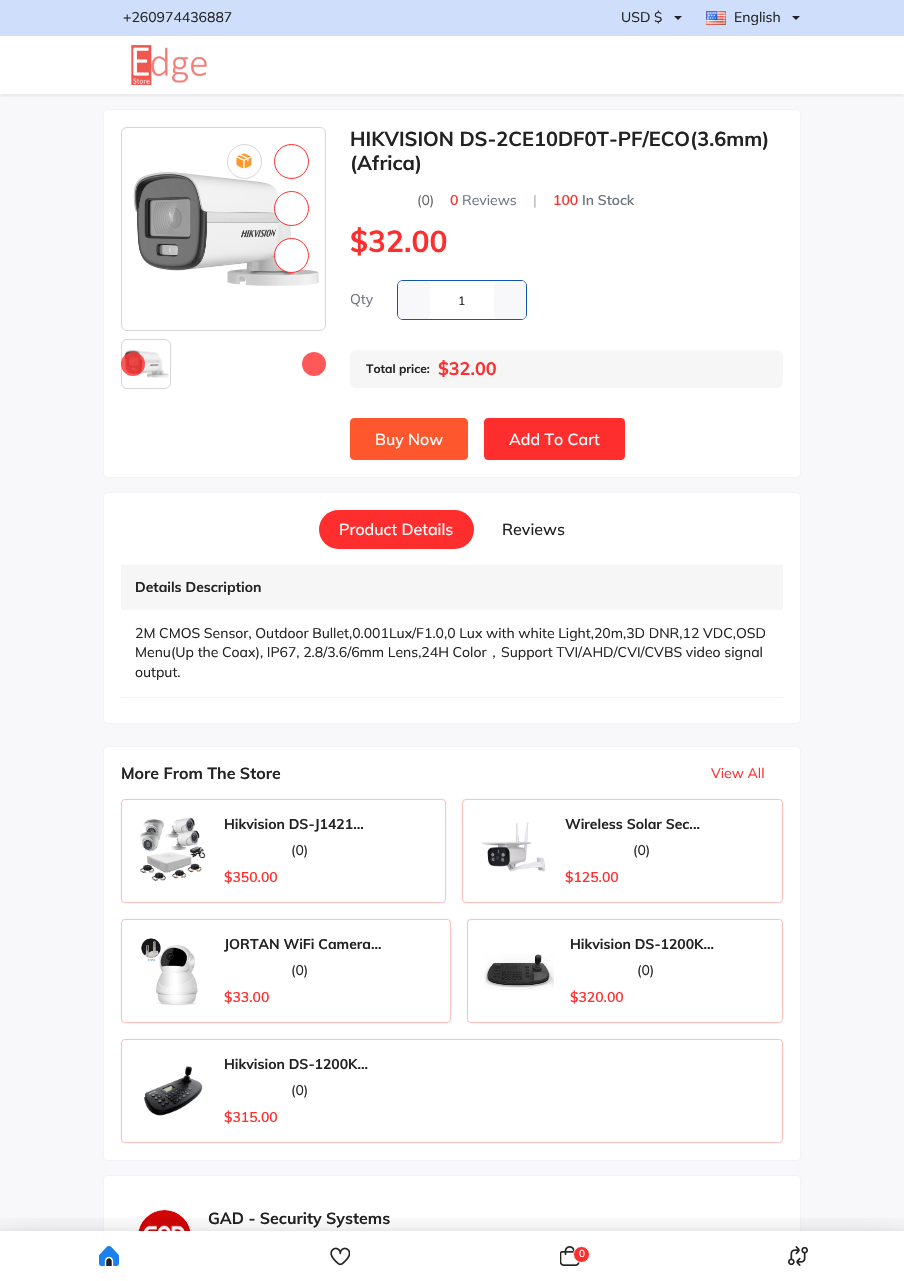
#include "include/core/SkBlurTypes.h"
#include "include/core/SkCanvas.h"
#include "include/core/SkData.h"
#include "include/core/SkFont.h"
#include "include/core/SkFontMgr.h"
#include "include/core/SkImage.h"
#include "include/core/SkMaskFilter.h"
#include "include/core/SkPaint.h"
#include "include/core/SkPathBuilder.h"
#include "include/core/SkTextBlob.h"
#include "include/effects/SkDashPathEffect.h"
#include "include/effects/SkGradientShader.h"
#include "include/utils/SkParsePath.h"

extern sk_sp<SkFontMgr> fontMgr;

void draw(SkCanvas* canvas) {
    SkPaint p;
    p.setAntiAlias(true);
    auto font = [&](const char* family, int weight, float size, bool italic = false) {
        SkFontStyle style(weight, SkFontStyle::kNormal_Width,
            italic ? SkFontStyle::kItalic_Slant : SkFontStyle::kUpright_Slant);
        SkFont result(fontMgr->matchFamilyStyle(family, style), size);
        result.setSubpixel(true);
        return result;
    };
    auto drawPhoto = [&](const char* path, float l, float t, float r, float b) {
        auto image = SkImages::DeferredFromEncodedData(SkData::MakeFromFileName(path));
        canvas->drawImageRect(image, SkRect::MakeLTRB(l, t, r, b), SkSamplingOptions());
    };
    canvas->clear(0xFFF8F8FA);
    p.setColor(0xFFFFFFFF);
    canvas->drawRect(SkRect::MakeLTRB(0, 36, 904, 94), p);
    p.setColor(0xFFCFDFFB);
    canvas->drawRect(SkRect::MakeLTRB(0, 0, 904, 36), p);
    auto font1 = font("Mulish", 400, 14);
    p.setColor(0xFF222222);
    canvas->drawString("+260974436887", 123, 22, font1, p);
    canvas->drawString("USD $", 621, 22, font1, p);
    canvas->drawPath(SkPathBuilder().moveTo(674, 16).lineTo(682, 16).lineTo(678, 20).close().detach(), p);
    drawPhoto("media/1.png", 706, 11, 726, 25);
    canvas->drawString("English", 734, 22, font1, p);
    canvas->drawPath(SkPathBuilder().moveTo(792, 16).lineTo(800, 16).lineTo(796, 20).close().detach(), p);
    canvas->save();
    canvas->clipRect(SkRect::MakeLTRB(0, 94, 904, 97));
    p.setColor(0x12000000);
    p.setMaskFilter(SkMaskFilter::MakeBlur(kNormal_SkBlurStyle, 2));
    canvas->drawRect(SkRect::MakeLTRB(0, 38, 904, 96), p);
    p.setMaskFilter(nullptr);
    canvas->restore();
    drawPhoto("media/2.png", 131, 45, 207, 85);
    p.setColor(0x33919EAB);
    p.setMaskFilter(SkMaskFilter::MakeBlur(kNormal_SkBlurStyle, 1));
    canvas->drawRoundRect(SkRect::MakeLTRB(104, 110, 800, 477), 4, 4, p);
    p.setMaskFilter(nullptr);
    p.setColor(0xFFFFFFFF);
    canvas->drawRoundRect(SkRect::MakeLTRB(104, 110, 800, 477), 4, 4, p);
    p.setStyle(SkPaint::kStroke_Style);
    p.setStrokeWidth(1);
    p.setColor(0xFFD6D6D6);
    canvas->drawRoundRect(SkRect::MakeLTRB(121.5f, 127.5f, 325.5f, 330.5f), 5.5f, 5.5f, p);
    drawPhoto("media/4.png", 133, 172, 319, 286);
    canvas->drawCircle(244.5f, 161.5f, 17, p);
    drawPhoto("media/3.png", 236, 153, 252, 169);
    p.setColor(0xFFFF2E2E);
    canvas->drawCircle(291.5f, 161.5f, 17, p);
    p.setStyle(SkPaint::kFill_Style);
    p.setColor(0xFFFFFFFF);
    canvas->drawCircle(291.5f, 208.5f, 17, p);
    p.setStyle(SkPaint::kStroke_Style);
    p.setColor(0xFFFF2E2E);
    canvas->drawCircle(291.5f, 208.5f, 17, p);
    p.setStyle(SkPaint::kFill_Style);
    p.setColor(0xFFFFFFFF);
    canvas->drawCircle(291.5f, 255.5f, 17, p);
    p.setStyle(SkPaint::kStroke_Style);
    p.setColor(0xFFFF2E2E);
    canvas->drawCircle(291.5f, 255.5f, 17, p);
    p.setColor(0xFFD6D6D6);
    canvas->drawRoundRect(SkRect::MakeLTRB(121.5f, 339.5f, 170.5f, 388.5f), 5.5f, 5.5f, p);
    drawPhoto("media/5.png", 124, 350, 169, 378);
    p.setStyle(SkPaint::kFill_Style);
    p.setColor(0xCCFF2E2E);
    canvas->drawCircle(133, 364, 12, p);
    p.setColor(0xFFFF5858);
    canvas->drawCircle(314, 364, 12, p);
    auto font2 = font("Mulish", 700, 20);
    p.setColor(0xFF222222);
    canvas->drawString("HIKVISION DS-2CE10DF0T-PF/ECO(3.6mm)", 350, 146, font2, p);
    canvas->drawString("(Africa)", 350, 170, font2, p);
    p.setColor(0xFF666666);
    canvas->drawString("(0)", 417, 205, font1, p);
    auto font3 = font("Mulish", 600, 14);
    p.setColor(0xFFFF2E2E);
    canvas->drawString("0", 450, 205, font3, p);
    p.setColor(0xFF6C757D);
    canvas->drawString("Reviews", 462, 205, font1, p);
    p.setColor(0xFFB3B3B3);
    canvas->drawString("|", 533, 205, font1, p);
    p.setColor(0xFFFF2E2E);
    canvas->drawString("100", 553, 205, font3, p);
    p.setColor(0xFF6C757D);
    canvas->drawString("In Stock", 582, 205, font3, p);
    auto font4 = font("Mulish", 700, 30);
    p.setColor(0xFFFF2E2E);
    canvas->drawString("$32.00", 350, 252, font4, p);
    p.setColor(0xFF6C757D);
    canvas->drawString("Qty", 350, 304, font1, p);
    p.setStyle(SkPaint::kStroke_Style);
    p.setColor(0xFF1455AC);
    canvas->drawRoundRect(SkRect::MakeLTRB(397.5f, 280.5f, 526.5f, 319.5f), 5.5f, 5.5f, p);
    p.setStyle(SkPaint::kFill_Style);
    p.setColor(0xFFF8F8FA);
    canvas->drawPath(SkPathBuilder().moveTo(403, 281).lineTo(426, 281).cubicTo(428, 281, 430, 283, 430, 285).lineTo(430, 315).cubicTo(430, 317, 428, 319, 426, 319).lineTo(403, 319).cubicTo(400, 319, 398, 317, 398, 314).lineTo(398, 286).cubicTo(398, 283, 400, 281, 403, 281).close().detach(), p);
    auto font5 = font("Mulish", 400, 12);
    p.setColor(0xFF222222);
    canvas->drawString("1", 458, 305, font5, p);
    p.setColor(0xFFF8F8FA);
    canvas->drawPath(SkPathBuilder().moveTo(498, 281).lineTo(521, 281).cubicTo(524, 281, 526, 283, 526, 286).lineTo(526, 314).cubicTo(526, 317, 524, 319, 521, 319).lineTo(498, 319).cubicTo(496, 319, 494, 317, 494, 315).lineTo(494, 285).cubicTo(494, 283, 496, 281, 498, 281).close().detach(), p);
    p.setColor(0xFFF6F6F6);
    canvas->drawRoundRect(SkRect::MakeLTRB(350, 350, 783, 388), 6, 6, p);
    auto font6 = font("Mulish", 700, 12);
    p.setColor(0xFF222222);
    canvas->drawString("Total price:", 366, 373, font6, p);
    auto font7 = font("Mulish", 700, 18);
    p.setColor(0xFFFF2E2E);
    canvas->drawString("$32.00", 438, 375, font7, p);
    p.setColor(0xFFFE562D);
    canvas->drawRoundRect(SkRect::MakeLTRB(350.5f, 418.5f, 467.5f, 459.5f), 3.5f, 3.5f, p);
    p.setStyle(SkPaint::kStroke_Style);
    canvas->drawRoundRect(SkRect::MakeLTRB(350.5f, 418.5f, 467.5f, 459.5f), 3.5f, 3.5f, p);
    auto font8 = font("Mulish", 500, 16);
    p.setStyle(SkPaint::kFill_Style);
    p.setColor(0xFFFFFFFF);
    canvas->drawString("Buy Now", 375, 445, font8, p);
    p.setColor(0xFFFF2E2E);
    canvas->drawRoundRect(SkRect::MakeLTRB(484.5f, 418.5f, 624.5f, 459.5f), 3.5f, 3.5f, p);
    p.setStyle(SkPaint::kStroke_Style);
    canvas->drawRoundRect(SkRect::MakeLTRB(484.5f, 418.5f, 624.5f, 459.5f), 3.5f, 3.5f, p);
    p.setStyle(SkPaint::kFill_Style);
    p.setColor(0xFFFFFFFF);
    canvas->drawString("Add To Cart", 509, 445, font8, p);
    p.setColor(0x33919EAB);
    p.setMaskFilter(SkMaskFilter::MakeBlur(kNormal_SkBlurStyle, 1));
    canvas->drawRoundRect(SkRect::MakeLTRB(104, 493, 800, 723), 4, 4, p);
    p.setMaskFilter(nullptr);
    p.setColor(0xFFFFFFFF);
    canvas->drawRoundRect(SkRect::MakeLTRB(104, 493, 800, 723), 4, 4, p);
    p.setColor(0xFFFF2E2E);
    canvas->drawRoundRect(SkRect::MakeLTRB(319, 510, 474, 549), 19.5f, 19.5f, p);
    p.setColor(0xFFFFFFFF);
    canvas->drawString("Product Details", 339, 535, font8, p);
    p.setColor(0xFF222222);
    canvas->drawString("Reviews", 502, 535, font8, p);
    p.setColor(0xFFF6F6F6);
    canvas->drawRect(SkRect::MakeLTRB(121, 565, 783, 610), p);
    auto font9 = font("Mulish", 700, 14);
    p.setColor(0xFF222222);
    canvas->drawString("Details Description", 135, 592, font9, p);
    p.setColor(0xFFF4F4F4);
    canvas->drawRect(SkRect::MakeLTRB(121, 697, 783, 698), p);
    p.setColor(0xFF222222);
    canvas->drawString("2M CMOS Sensor, Outdoor Bullet,0.001Lux/F1.0,0 Lux with white Light,20m,3D DNR,12 VDC,OSD", 135, 638, font1, p);
    canvas->drawString("Menu(Up the Coax), IP67, 2.8/3.6/6mm Lens,24H Color", 135, 657, font1, p);
    auto font10 = font("WenQuanYi Zen Hei", 500, 14);
    canvas->drawString("，", 487, 657, font10, p);
    canvas->drawString("Support TVI/AHD/CVI/CVBS video signal", 501, 657, font1, p);
    canvas->drawString("output.", 135, 677, font1, p);
    p.setColor(0x33919EAB);
    p.setMaskFilter(SkMaskFilter::MakeBlur(kNormal_SkBlurStyle, 1));
    canvas->drawRoundRect(SkRect::MakeLTRB(104, 747, 800, 1160), 4, 4, p);
    p.setMaskFilter(nullptr);
    p.setColor(0xFFFFFFFF);
    canvas->drawRoundRect(SkRect::MakeLTRB(104, 747, 800, 1160), 4, 4, p);
    auto font11 = font("Mulish", 700, 16);
    p.setColor(0xFF222222);
    canvas->drawString("More From The Store", 121, 779, font11, p);
    p.setColor(0xFFFF2E2E);
    canvas->drawString("View All", 711, 778, font1, p);
    p.setColor(0x33919EAB);
    p.setMaskFilter(SkMaskFilter::MakeBlur(kNormal_SkBlurStyle, 1));
    canvas->drawRoundRect(SkRect::MakeLTRB(121, 799, 446, 903), 4, 4, p);
    p.setMaskFilter(nullptr);
    p.setColor(0xFFFFFFFF);
    canvas->drawRoundRect(SkRect::MakeLTRB(121.5f, 799.5f, 445.5f, 902.5f), 3.5f, 3.5f, p);
    p.setStyle(SkPaint::kStroke_Style);
    p.setColor(0xFFFFC0C0);
    canvas->drawRoundRect(SkRect::MakeLTRB(121.5f, 799.5f, 445.5f, 902.5f), 3.5f, 3.5f, p);
    drawPhoto("media/6.png", 140, 817, 206, 881);
    p.setStyle(SkPaint::kFill_Style);
    p.setColor(0xFF222222);
    canvas->drawString("Hikvision DS-J1421...", 224, 829, font9, p);
    canvas->drawString("(0)", 291, 855, font1, p);
    p.setColor(0xFFFF2E2E);
    canvas->drawString("$350.00", 224, 882, font3, p);
    p.setColor(0x33919EAB);
    p.setMaskFilter(SkMaskFilter::MakeBlur(kNormal_SkBlurStyle, 1));
    canvas->drawRoundRect(SkRect::MakeLTRB(462, 799, 783, 903), 4, 4, p);
    p.setMaskFilter(nullptr);
    p.setColor(0xFFFFFFFF);
    canvas->drawRoundRect(SkRect::MakeLTRB(462.5f, 799.5f, 782.5f, 902.5f), 3.5f, 3.5f, p);
    p.setStyle(SkPaint::kStroke_Style);
    p.setColor(0xFFFFC0C0);
    canvas->drawRoundRect(SkRect::MakeLTRB(462.5f, 799.5f, 782.5f, 902.5f), 3.5f, 3.5f, p);
    drawPhoto("media/7.png", 482, 822, 546, 872);
    p.setStyle(SkPaint::kFill_Style);
    p.setColor(0xFF222222);
    canvas->drawString("Wireless Solar Sec...", 565, 829, font9, p);
    canvas->drawString("(0)", 633, 855, font1, p);
    p.setColor(0xFFFF2E2E);
    canvas->drawString("$125.00", 565, 882, font3, p);
    p.setColor(0x33919EAB);
    p.setMaskFilter(SkMaskFilter::MakeBlur(kNormal_SkBlurStyle, 1));
    canvas->drawRoundRect(SkRect::MakeLTRB(121, 919, 451, 1023), 4, 4, p);
    p.setMaskFilter(nullptr);
    p.setColor(0xFFFFFFFF);
    canvas->drawRoundRect(SkRect::MakeLTRB(121.5f, 919.5f, 450.5f, 1022.5f), 3.5f, 3.5f, p);
    p.setStyle(SkPaint::kStroke_Style);
    p.setColor(0xFFFFC0C0);
    canvas->drawRoundRect(SkRect::MakeLTRB(121.5f, 919.5f, 450.5f, 1022.5f), 3.5f, 3.5f, p);
    drawPhoto("media/8.png", 141, 938, 198, 1006);
    p.setStyle(SkPaint::kFill_Style);
    p.setColor(0xFF222222);
    canvas->drawString("JORTAN WiFi Camera...", 224, 949, font9, p);
    canvas->drawString("(0)", 291, 975, font1, p);
    p.setColor(0xFFFF2E2E);
    canvas->drawString("$33.00", 224, 1002, font3, p);
    p.setColor(0x33919EAB);
    p.setMaskFilter(SkMaskFilter::MakeBlur(kNormal_SkBlurStyle, 1));
    canvas->drawRoundRect(SkRect::MakeLTRB(467, 919, 783, 1023), 4, 4, p);
    p.setMaskFilter(nullptr);
    p.setColor(0xFFFFFFFF);
    canvas->drawRoundRect(SkRect::MakeLTRB(467.5f, 919.5f, 782.5f, 1022.5f), 3.5f, 3.5f, p);
    p.setStyle(SkPaint::kStroke_Style);
    p.setColor(0xFFFFC0C0);
    canvas->drawRoundRect(SkRect::MakeLTRB(467.5f, 919.5f, 782.5f, 1022.5f), 3.5f, 3.5f, p);
    drawPhoto("media/9.png", 484, 954, 554, 990);
    p.setStyle(SkPaint::kFill_Style);
    p.setColor(0xFF222222);
    canvas->drawString("Hikvision DS-1200K...", 570, 949, font9, p);
    canvas->drawString("(0)", 637, 975, font1, p);
    p.setColor(0xFFFF2E2E);
    canvas->drawString("$320.00", 570, 1002, font3, p);
    p.setColor(0x33919EAB);
    p.setMaskFilter(SkMaskFilter::MakeBlur(kNormal_SkBlurStyle, 1));
    canvas->drawRoundRect(SkRect::MakeLTRB(121, 1039, 783, 1143), 4, 4, p);
    p.setMaskFilter(nullptr);
    p.setColor(0xFFFFFFFF);
    canvas->drawRoundRect(SkRect::MakeLTRB(121.5f, 1039.5f, 782.5f, 1142.5f), 3.5f, 3.5f, p);
    p.setStyle(SkPaint::kStroke_Style);
    p.setColor(0xFFFFC0C0);
    canvas->drawRoundRect(SkRect::MakeLTRB(121.5f, 1039.5f, 782.5f, 1142.5f), 3.5f, 3.5f, p);
    drawPhoto("media/10.png", 143, 1066, 203, 1116);
    p.setStyle(SkPaint::kFill_Style);
    p.setColor(0xFF222222);
    canvas->drawString("Hikvision DS-1200K...", 224, 1069, font9, p);
    canvas->drawString("(0)", 291, 1095, font1, p);
    p.setColor(0xFFFF2E2E);
    canvas->drawString("$315.00", 224, 1122, font3, p);
    p.setColor(0x33919EAB);
    p.setMaskFilter(SkMaskFilter::MakeBlur(kNormal_SkBlurStyle, 1));
    canvas->drawRoundRect(SkRect::MakeLTRB(104, 1176, 800, 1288), 4, 4, p);
    p.setMaskFilter(nullptr);
    p.setColor(0xFFFFFFFF);
    canvas->drawRoundRect(SkRect::MakeLTRB(104, 1176, 800, 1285), 4, 4, p);
    p.setStyle(SkPaint::kStroke_Style);
    p.setColor(0xFFF4F4F4);
    canvas->drawCircle(164.5f, 1236.5f, 27, p);
    drawPhoto("media/11.png", 138, 1210, 191, 1231);
    p.setStyle(SkPaint::kFill_Style);
    p.setColor(0xFF222222);
    canvas->drawString("GAD - Security Systems", 208, 1224, font11, p);
    p.setColor(0x1A000000);
    p.setMaskFilter(SkMaskFilter::MakeBlur(kNormal_SkBlurStyle, 5));
    canvas->drawRect(SkRect::MakeLTRB(0, 1233, 904, 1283), p);
    p.setMaskFilter(nullptr);
    p.setColor(0xFFFFFFFF);
    canvas->drawRect(SkRect::MakeLTRB(0, 1231, 904, 1281), p);
    canvas->save();
    canvas->clipRect(SkRect::MakeLTRB(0, 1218, 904, 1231));
    p.setColor(0x2E000000);
    p.setMaskFilter(SkMaskFilter::MakeBlur(kNormal_SkBlurStyle, 24));
    canvas->drawRect(SkRect::MakeLTRB(0, 1247, 904, 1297), p);
    p.setMaskFilter(nullptr);
    canvas->restore();
    drawPhoto("media/12.png", 99, 1246, 119, 1266);
    drawPhoto("media/13.png", 330, 1247, 350, 1266);
    drawPhoto("media/14.png", 560, 1246, 580, 1266);
    p.setColor(0xFFFF2E2E);
    canvas->drawCircle(581.5f, 1254.5f, 8, p);
    p.setStyle(SkPaint::kStroke_Style);
    p.setColor(0xFFFFFFFF);
    canvas->drawCircle(581.5f, 1254.5f, 8, p);
    auto font12 = font("Mulish", 400, 10);
    p.setStyle(SkPaint::kFill_Style);
    canvas->drawString("0", 579, 1257, font12, p);
    drawPhoto("media/15.png", 788, 1246, 808, 1266);
}
